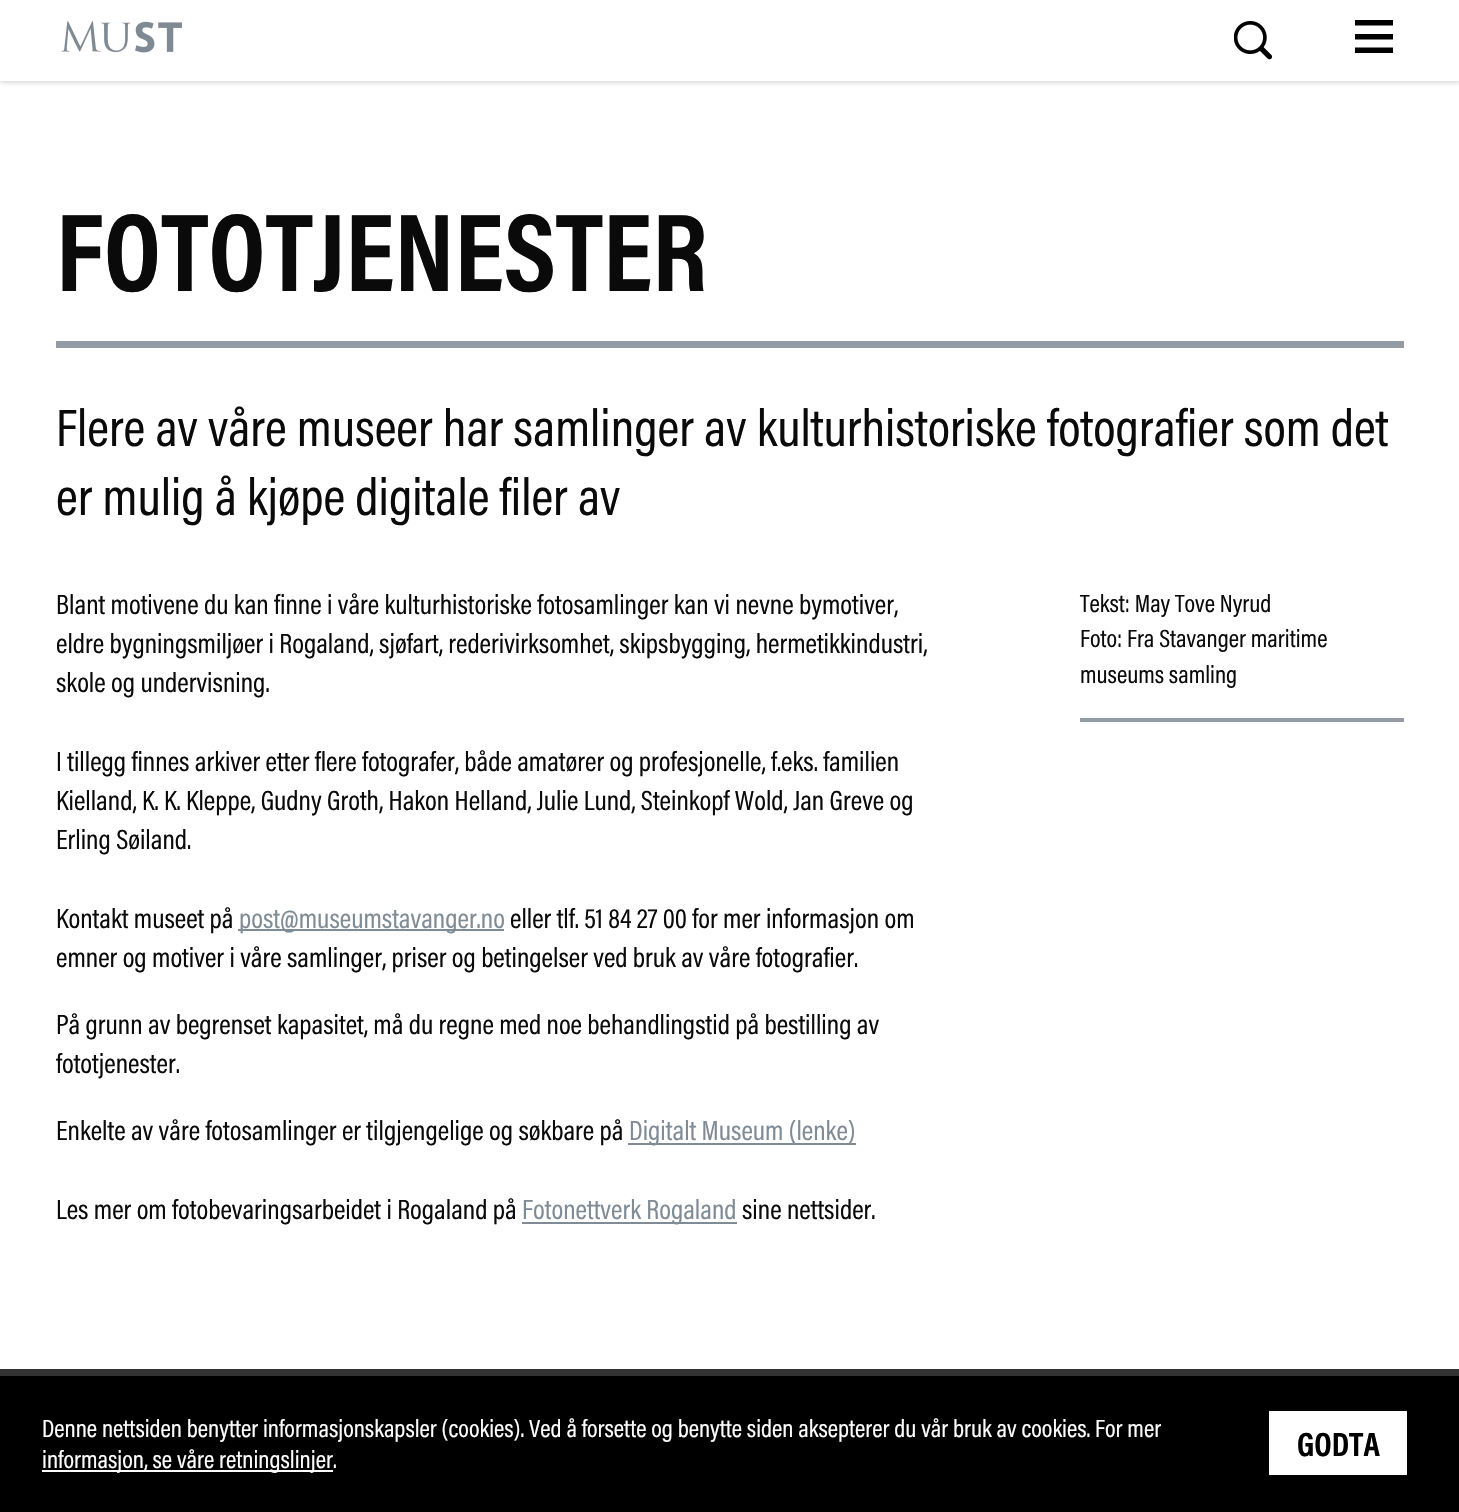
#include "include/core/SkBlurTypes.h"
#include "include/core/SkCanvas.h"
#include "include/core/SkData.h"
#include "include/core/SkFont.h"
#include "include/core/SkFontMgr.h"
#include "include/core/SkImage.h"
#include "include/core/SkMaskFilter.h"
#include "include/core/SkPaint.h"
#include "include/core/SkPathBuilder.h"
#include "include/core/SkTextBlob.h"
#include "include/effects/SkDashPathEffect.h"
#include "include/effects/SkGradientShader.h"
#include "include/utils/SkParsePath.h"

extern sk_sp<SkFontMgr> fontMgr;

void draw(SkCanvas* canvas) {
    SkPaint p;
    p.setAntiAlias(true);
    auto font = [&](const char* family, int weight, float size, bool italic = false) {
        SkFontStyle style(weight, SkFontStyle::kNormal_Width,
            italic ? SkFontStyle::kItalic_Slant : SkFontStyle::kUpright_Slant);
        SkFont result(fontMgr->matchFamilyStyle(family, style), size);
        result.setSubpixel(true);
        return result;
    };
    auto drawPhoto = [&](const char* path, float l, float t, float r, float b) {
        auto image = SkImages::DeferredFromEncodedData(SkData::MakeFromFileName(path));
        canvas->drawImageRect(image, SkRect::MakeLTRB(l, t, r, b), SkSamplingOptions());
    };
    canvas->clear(0xFFFFFFFF);
    p.setColor(0x33000000);
    p.setMaskFilter(SkMaskFilter::MakeBlur(kNormal_SkBlurStyle, 2.5f));
    canvas->drawRect(SkRect::MakeLTRB(0, 2, 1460, 82), p);
    p.setMaskFilter(nullptr);
    p.setColor(0xFFFFFFFF);
    canvas->drawRect(SkRect::MakeLTRB(0, 0, 1459, 81), p);
    drawPhoto("media/1.png", 61, 21, 182, 53);
    drawPhoto("media/2.png", 1234, 21, 1273, 60);
    canvas->save();
    canvas->clipRect(SkRect::MakeLTRB(1355, 18, 1393, 56));
    p.setColor(0xFF000000);
    canvas->drawPath(SkPathBuilder(SkPathFillType::kEvenOdd).moveTo(1355, 25.5f).lineTo(1393.5f, 25.5f).lineTo(1393.5f, 20).lineTo(1355, 20).close().moveTo(1355, 39.5f).lineTo(1393.5f, 39.5f).lineTo(1393.5f, 34).lineTo(1355, 34).close().moveTo(1355, 53).lineTo(1393.5f, 53).lineTo(1393.5f, 47.5f).lineTo(1355, 47.5f).close().detach(), p);
    canvas->restore();
    auto font1 = font("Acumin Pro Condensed", 700, 112);
    p.setColor(0xFF0A0A0A);
    canvas->drawString("FOTOTJENESTER", 56, 291, font1, p);
    p.setColor(0xFF939CA5);
    canvas->drawRect(SkRect::MakeLTRB(56, 341, 1404, 348), p);
    auto font2 = font("Acumin Pro Condensed", 400, 53.2f);
    p.setColor(0xFF0A0A0A);
    canvas->drawString("Flere av våre museer har samlinger av kulturhistoriske fotografier som det", 56, 446, font2, p);
    canvas->drawString("er mulig å kjøpe digitale filer av", 56, 515, font2, p);
    auto font3 = font("Acumin Pro Condensed", 400, 28);
    {
        const struct { const char* s; float x, y; } items[] = {
            {"Blant motivene du kan finne i våre kulturhistoriske fotosamlinger kan vi nevne bymotiver,", 56, 614},
            {"eldre bygningsmiljøer i Rogaland, sjøfart, rederivirksomhet, skipsbygging, hermetikkindustri,", 56, 653},
            {"skole og undervisning.", 56, 692},
            {"I tillegg finnes arkiver etter flere fotografer, både amatører og profesjonelle, f.eks. familien", 56, 771},
            {"Kielland, K. K. Kleppe, Gudny Groth, Hakon Helland, Julie Lund, Steinkopf Wold, Jan Greve og", 56, 810},
            {"Erling Søiland.", 56, 849},
            {"Kontakt museet på", 56, 928},
        };
        for (auto [s, x, y] : items) {
            canvas->drawString(s, x, y, font3, p);
        }
    }
    p.setColor(0xFF7F8B95);
    canvas->drawRect(SkRect::MakeLTRB(238, 929, 504, 931), p);
    canvas->drawString("post@museumstavanger.no", 239, 928, font3, p);
    p.setColor(0xFF0A0A0A);
    {
        const struct { const char* s; float x, y; } items[] = {
            {"eller tlf. 51 84 27 00 for mer informasjon om", 510, 928},
            {"emner og motiver i våre samlinger, priser og betingelser ved bruk av våre fotografier.", 56, 967},
            {"På grunn av begrenset kapasitet, må du regne med noe behandlingstid på bestilling av", 56, 1034},
            {"fototjenester.", 56, 1073},
            {"Enkelte av våre fotosamlinger er tilgjengelige og søkbare på", 56, 1140},
        };
        for (auto [s, x, y] : items) {
            canvas->drawString(s, x, y, font3, p);
        }
    }
    p.setColor(0xFF7F8B95);
    canvas->drawRect(SkRect::MakeLTRB(628, 1143, 856, 1145), p);
    canvas->drawString("Digitalt Museum (lenke)", 629, 1140, font3, p);
    p.setColor(0xFF0A0A0A);
    canvas->drawString("Les mer om fotobevaringsarbeidet i Rogaland på", 56, 1219, font3, p);
    p.setColor(0xFF7F8B95);
    canvas->drawRect(SkRect::MakeLTRB(522, 1222, 737, 1224), p);
    canvas->drawString("Fotonettverk Rogaland", 522, 1219, font3, p);
    p.setColor(0xFF0A0A0A);
    canvas->drawString("sine nettsider.", 742, 1219, font3, p);
    auto font4 = font("Acumin Pro Condensed", 400, 25.2f);
    {
        const struct { const char* s; float x, y; } items[] = {
            {"Tekst: May Tove Nyrud", 1080, 612},
            {"Foto: Fra Stavanger maritime", 1080, 647},
            {"museums samling", 1080, 683},
        };
        for (auto [s, x, y] : items) {
            canvas->drawString(s, x, y, font4, p);
        }
    }
    {
        const struct { float l, t, r, b; SkColor color; } items[] = {
            {1080, 718, 1404, 722, 0xFF939CA5},
            {0, 1376, 1459, 1512, 0xFF000000},
            {0, 1369, 1459, 1376, 0xFF333333},
        };
        for (auto [l, t, r, b, color] : items) {
            p.setColor(color);
            canvas->drawRect(SkRect::MakeLTRB(l, t, r, b), p);
        }
    }
    p.setColor(0xFFFFFFFF);
    canvas->drawString("Denne nettsiden benytter informasjonskapsler (cookies). Ved å forsette og benytte siden aksepterer du vår bruk av cookies. For mer", 42, 1437, font4, p);
    canvas->drawRect(SkRect::MakeLTRB(42, 1470, 333, 1472), p);
    canvas->drawString("informasjon, se våre retningslinjer.", 42, 1468, font4, p);
    canvas->drawRect(SkRect::MakeLTRB(1269, 1411, 1407, 1475), p);
    auto font5 = font("Acumin Pro Condensed", 700, 34);
    p.setColor(0xFF000000);
    canvas->drawString("GODTA", 1297, 1456, font5, p);
}
